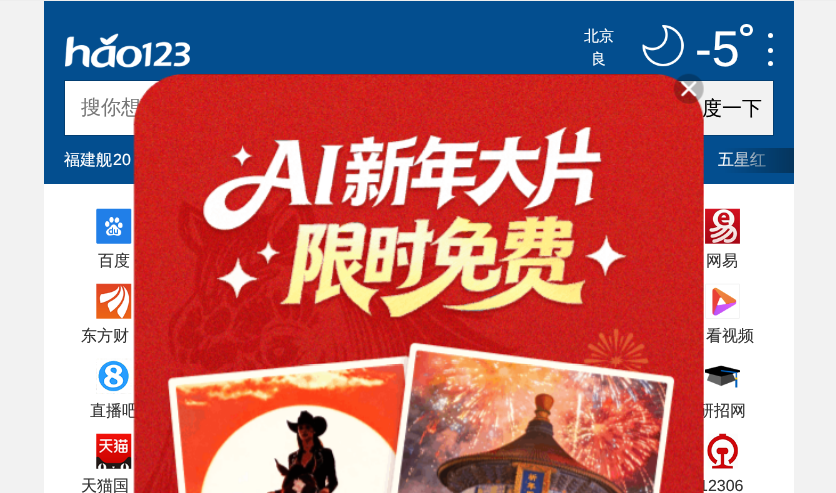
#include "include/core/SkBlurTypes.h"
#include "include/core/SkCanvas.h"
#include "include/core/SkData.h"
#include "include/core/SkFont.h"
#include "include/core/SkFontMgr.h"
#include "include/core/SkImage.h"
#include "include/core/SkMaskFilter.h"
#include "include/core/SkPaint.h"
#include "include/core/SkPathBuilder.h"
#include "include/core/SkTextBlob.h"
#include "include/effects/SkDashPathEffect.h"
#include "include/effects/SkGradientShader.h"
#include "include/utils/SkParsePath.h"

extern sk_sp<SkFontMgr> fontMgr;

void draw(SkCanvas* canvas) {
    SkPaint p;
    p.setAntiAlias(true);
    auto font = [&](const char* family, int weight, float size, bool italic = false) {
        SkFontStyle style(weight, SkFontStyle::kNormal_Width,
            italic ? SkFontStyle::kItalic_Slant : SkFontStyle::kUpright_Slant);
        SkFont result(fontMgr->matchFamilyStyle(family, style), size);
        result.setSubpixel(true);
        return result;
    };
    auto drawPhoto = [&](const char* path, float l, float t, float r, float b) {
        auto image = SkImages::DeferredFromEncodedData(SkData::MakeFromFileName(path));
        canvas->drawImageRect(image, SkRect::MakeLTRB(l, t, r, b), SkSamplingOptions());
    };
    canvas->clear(0xFFF2F2F2);
    p.setColor(0xFFEEEEEE);
    canvas->drawRect(SkRect::MakeLTRB(0, 0, 836, 1), p);
    p.setColor(0xFF034E8F);
    canvas->drawRect(SkRect::MakeLTRB(44, 1, 794, 184), p);
    drawPhoto("media/1.png", 65, 33, 190, 68);
    auto font1 = font("WenQuanYi Zen Hei", 500, 15);
    p.setColor(0xFFFFFFFF);
    canvas->drawString("北京", 584, 41, font1, p);
    canvas->drawString("良", 591, 64, font1, p);
    drawPhoto("media/2.png", 642, 25, 684, 67);
    auto font2 = font("Liberation Sans", 400, 50);
    canvas->drawString("-5", 695, 66, font2, p);
    p.setStyle(SkPaint::kStroke_Style);
    p.setStrokeWidth(3);
    canvas->drawRoundRect(SkRect::MakeLTRB(741.5f, 25.5f, 751.5f, 34.5f), 4.5f, 4.5f, p);
    p.setStyle(SkPaint::kFill_Style);
    canvas->drawCircle(770.5f, 35.5f, 2.5f, p);
    canvas->drawCircle(770.5f, 50.5f, 2.5f, p);
    canvas->drawCircle(770.5f, 63.5f, 2.5f, p);
    p.setStyle(SkPaint::kStroke_Style);
    p.setStrokeWidth(1);
    p.setColor(0xFF023E72);
    canvas->drawRect(SkRect::MakeLTRB(64.5f, 80.5f, 773.5f, 135.5f), p);
    p.setStyle(SkPaint::kFill_Style);
    p.setColor(0xFFFFFFFF);
    canvas->drawRect(SkRect::MakeLTRB(65, 81, 632, 135), p);
    auto font3 = font("WenQuanYi Zen Hei", 500, 20);
    p.setColor(0xFF777777);
    canvas->drawString("搜你想", 81, 114, font3, p);
    p.setColor(0xFFF2F2F2);
    canvas->drawRect(SkRect::MakeLTRB(676, 81, 773, 135), p);
    p.setColor(0xFF000000);
    canvas->drawString("度一下", 702, 115, font3, p);
    auto font4 = font("WenQuanYi Zen Hei", 500, 16);
    p.setColor(0xFFFFFFFF);
    canvas->drawString("五星红", 718, 165, font4, p);
    {
        const SkColor colors[] = {0x0004345C, 0xFF04345C};
        const float stops[] = {0, 1};
        const SkPoint ends[] = {{723, 160}, {794, 160}};
        p.setShader(SkGradientShader::MakeLinear(ends, colors, stops, 2, SkTileMode::kClamp));
        p.setAlpha(255);
    }
    canvas->drawRect(SkRect::MakeLTRB(725, 148, 794, 173), p);
    p.setShader(nullptr);
    p.setColor(0xFFFFFFFF);
    canvas->drawString("福建舰", 64, 165, font4, p);
    auto font5 = font("Liberation Sans", 400, 16);
    canvas->drawString("20", 113, 165, font5, p);
    canvas->drawRect(SkRect::MakeLTRB(44, 184, 794, 493), p);
    drawPhoto("media/5.png", 217, 208, 253, 232);
    drawPhoto("media/6.png", 340, 208, 375, 244);
    drawPhoto("media/7.png", 461, 216, 497, 244);
    drawPhoto("media/8.png", 602, 234, 611, 244);
    drawPhoto("media/11.png", 235, 284, 248, 300);
    drawPhoto("media/12.png", 340, 290, 375, 317);
    drawPhoto("media/13.png", 461, 283, 497, 314);
    drawPhoto("media/14.png", 582, 283, 588, 306);
    drawPhoto("media/17.png", 223, 371, 247, 387);
    drawPhoto("media/18.png", 340, 359, 375, 387);
    drawPhoto("media/19.png", 461, 358, 497, 394);
    drawPhoto("media/20.png", 582, 366, 618, 394);
    p.setColor(0xFF333333);
    canvas->drawString("直播吧", 90, 416, font4, p);
    canvas->drawString("研招网", 698, 416, font4, p);
    drawPhoto("media/23.png", 217, 433, 236, 453);
    drawPhoto("media/24.png", 473, 433, 497, 458);
    drawPhoto("media/25.png", 588, 438, 613, 468);
    canvas->drawString("12306", 699, 491, font5, p);
    drawPhoto("media/4.png", 133, 74, 704, 493);
    drawPhoto("media/3.png", 673, 73, 704, 104);
    drawPhoto("media/9.png", 96, 208, 132, 244);
    canvas->drawString("百度", 98, 266, font4, p);
    drawPhoto("media/10.png", 705, 208, 740, 244);
    canvas->drawString("网易", 706, 266, font4, p);
    drawPhoto("media/15.png", 96, 283, 132, 319);
    canvas->drawString("东方财", 81, 341, font4, p);
    drawPhoto("media/16.png", 705, 283, 740, 319);
    canvas->drawString("看视频", 706, 341, font4, p);
    drawPhoto("media/21.png", 96, 358, 132, 394);
    drawPhoto("media/22.png", 705, 365, 740, 388);
    drawPhoto("media/26.png", 96, 433, 132, 469);
    canvas->drawString("天猫国", 81, 491, font4, p);
    drawPhoto("media/27.png", 707, 433, 738, 469);
}
